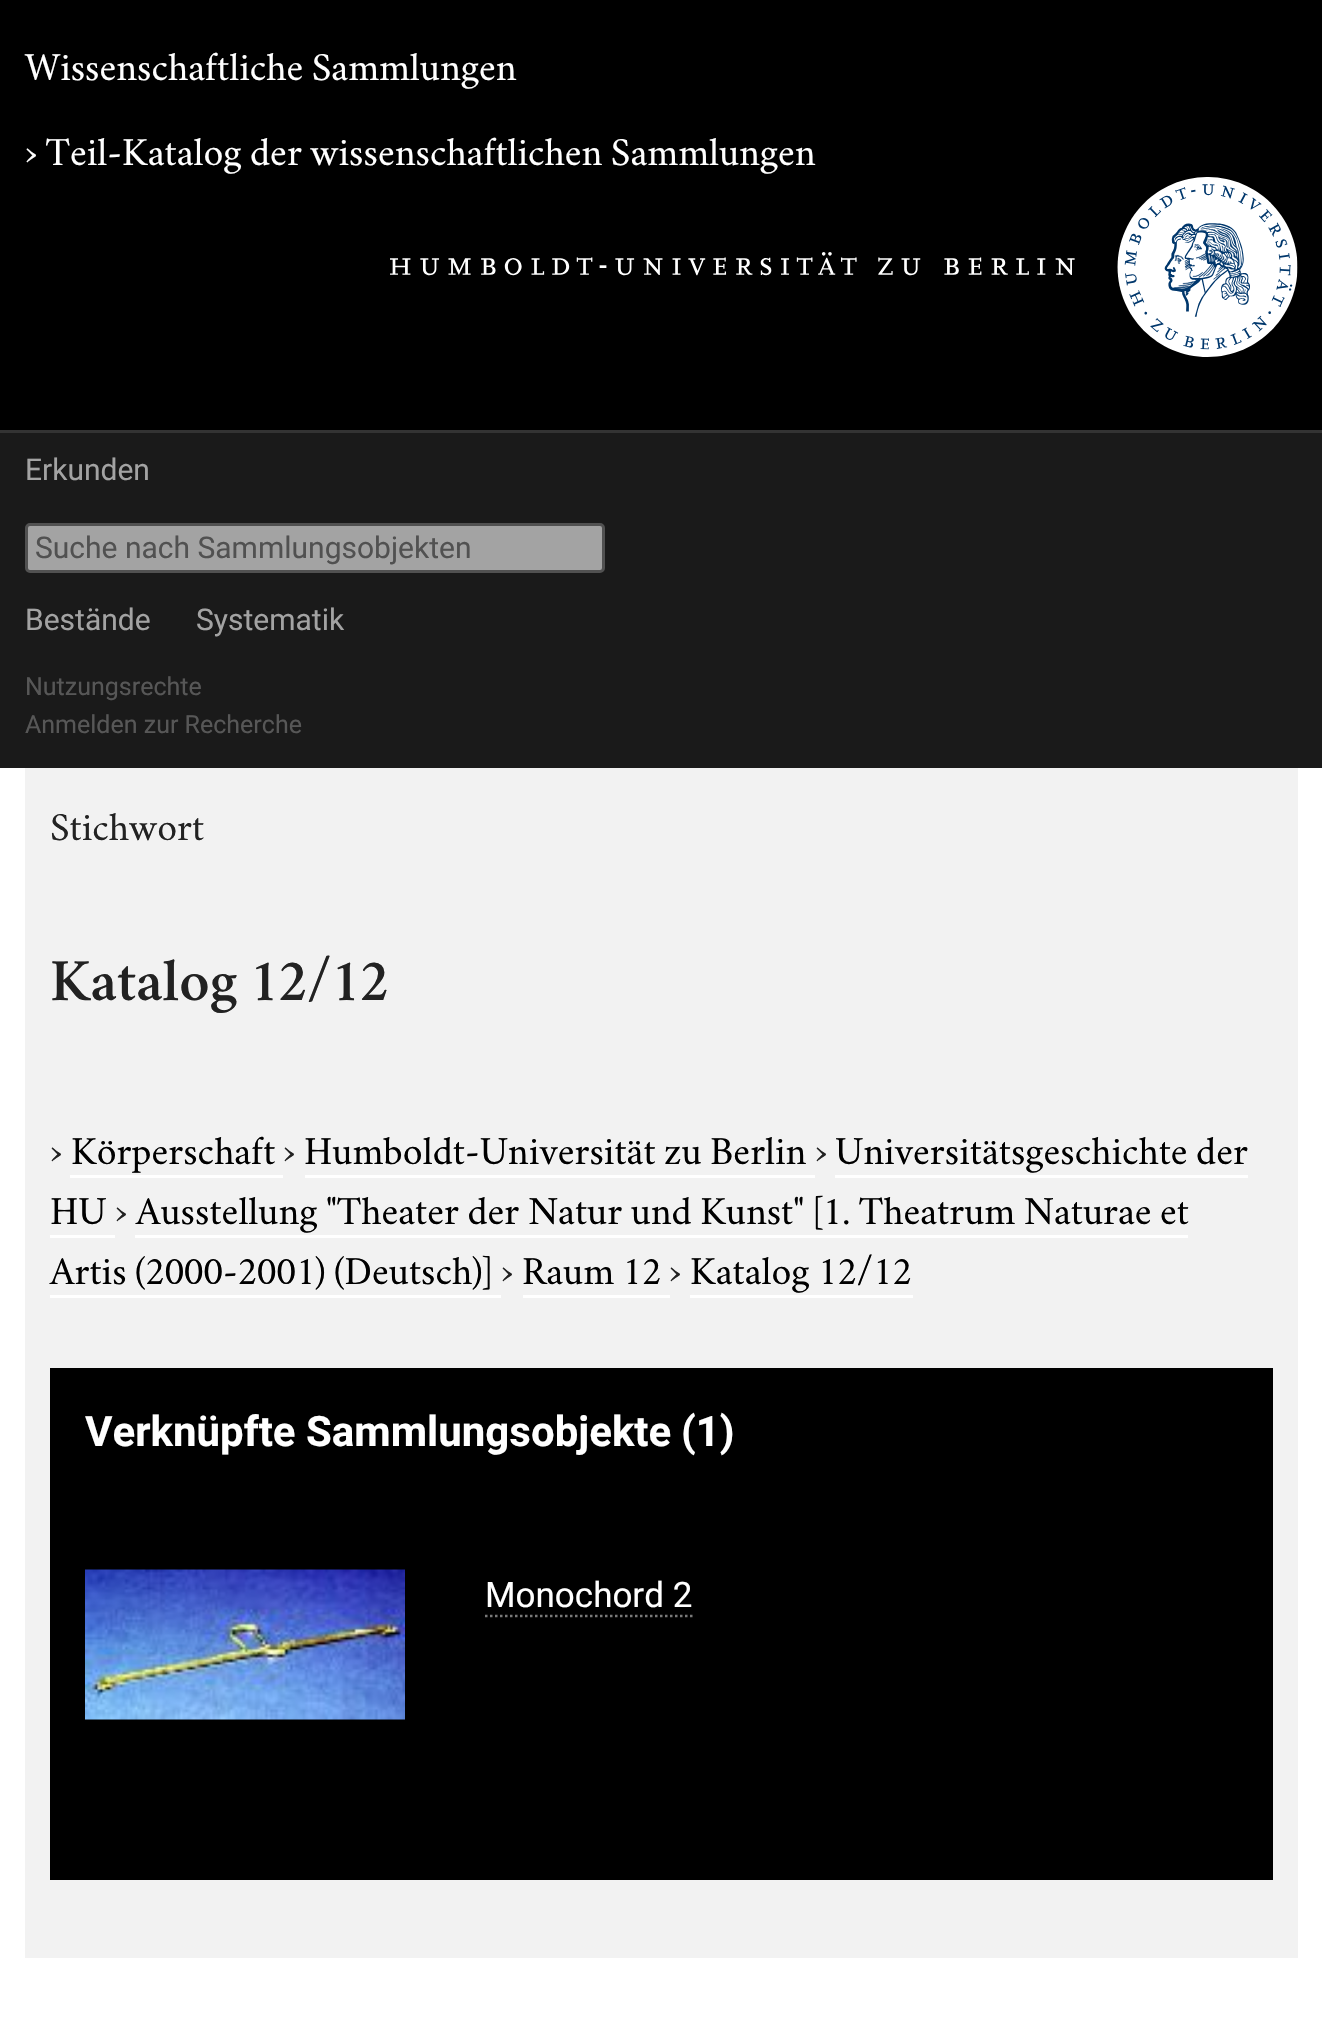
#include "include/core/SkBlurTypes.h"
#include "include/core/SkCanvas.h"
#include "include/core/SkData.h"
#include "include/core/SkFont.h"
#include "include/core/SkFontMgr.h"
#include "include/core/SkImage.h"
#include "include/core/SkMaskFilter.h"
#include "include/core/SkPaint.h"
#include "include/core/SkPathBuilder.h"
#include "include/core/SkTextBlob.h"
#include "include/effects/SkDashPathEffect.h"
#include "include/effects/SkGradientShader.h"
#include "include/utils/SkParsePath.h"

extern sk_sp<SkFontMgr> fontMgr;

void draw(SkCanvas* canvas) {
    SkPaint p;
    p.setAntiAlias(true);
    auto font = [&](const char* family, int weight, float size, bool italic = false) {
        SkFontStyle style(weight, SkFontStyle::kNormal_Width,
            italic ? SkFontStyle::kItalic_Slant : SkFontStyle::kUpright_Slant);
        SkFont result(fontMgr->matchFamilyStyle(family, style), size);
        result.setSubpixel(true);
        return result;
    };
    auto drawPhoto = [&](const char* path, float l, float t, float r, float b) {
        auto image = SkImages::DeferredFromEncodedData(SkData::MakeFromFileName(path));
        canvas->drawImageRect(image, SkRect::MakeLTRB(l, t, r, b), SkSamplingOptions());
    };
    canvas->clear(0xFFFFFFFF);
    p.setColor(0xFF000000);
    canvas->drawRect(SkRect::MakeLTRB(0, 0, 1322, 430), p);
    auto font1 = font("Crimson Text", 400, 40);
    p.setColor(0xFFFFFFFF);
    canvas->drawString("Wissenschaftliche Sammlungen", 25, 80, font1, p);
    canvas->drawString("› Teil-Katalog der wissenschaftlichen Sammlungen", 25, 165, font1, p);
    drawPhoto("media/1.png", 390, 177, 1298, 357);
    p.setColor(0xFF1A1A1A);
    canvas->drawRect(SkRect::MakeLTRB(0, 433, 1322, 768), p);
    p.setColor(0xFF333333);
    canvas->drawRect(SkRect::MakeLTRB(0, 430, 1322, 433), p);
    auto font2 = font("Roboto", 400, 30);
    p.setColor(0xFFA3A3A3);
    canvas->drawString("Erkunden", 25, 480, font2, p);
    canvas->drawRoundRect(SkRect::MakeLTRB(26.5f, 524.5f, 603.5f, 571.5f), 3.5f, 3.5f, p);
    p.setStyle(SkPaint::kStroke_Style);
    p.setStrokeWidth(3);
    p.setColor(0xFF515151);
    canvas->drawRoundRect(SkRect::MakeLTRB(26.5f, 524.5f, 603.5f, 571.5f), 3.5f, 3.5f, p);
    p.setStyle(SkPaint::kFill_Style);
    canvas->drawString("Suche nach Sammlungsobjekten", 35, 558, font2, p);
    p.setColor(0xFFA3A3A3);
    canvas->drawString("Bestände", 25, 630, font2, p);
    canvas->drawString("Systematik", 196, 630, font2, p);
    auto font3 = font("Roboto", 400, 25);
    p.setColor(0xFF575757);
    canvas->drawString("Nutzungsrechte", 25, 695, font3, p);
    canvas->drawString("Anmelden zur Recherche", 25, 733, font3, p);
    p.setColor(0xFFF2F2F2);
    canvas->drawRect(SkRect::MakeLTRB(25, 768, 1298, 1958), p);
    p.setColor(0xFF222222);
    canvas->drawString("Stichwort", 50, 840, font1, p);
    auto font4 = font("Crimson Text", 600, 60);
    canvas->drawString("Katalog 12/12", 50, 1000, font4, p);
    canvas->drawString("›", 50, 1164, font1, p);
    p.setColor(0xFF000000);
    canvas->drawString("Körperschaft", 71, 1164, font1, p);
    p.setColor(0xFFFFFFFF);
    canvas->drawRect(SkRect::MakeLTRB(70, 1175, 283, 1178), p);
    p.setColor(0xFF222222);
    canvas->drawString("›", 283, 1164, font1, p);
    p.setColor(0xFF000000);
    canvas->drawString("Humboldt-Universität zu Berlin", 304, 1164, font1, p);
    p.setColor(0xFFFFFFFF);
    canvas->drawRect(SkRect::MakeLTRB(305, 1175, 815, 1178), p);
    p.setColor(0xFF222222);
    canvas->drawString("›", 815, 1164, font1, p);
    p.setColor(0xFF000000);
    canvas->drawString("Universitätsgeschichte der", 835, 1164, font1, p);
    p.setColor(0xFFFFFFFF);
    canvas->drawRect(SkRect::MakeLTRB(835, 1175, 1248, 1178), p);
    p.setColor(0xFF000000);
    canvas->drawString("HU", 50, 1224, font1, p);
    p.setColor(0xFFFFFFFF);
    canvas->drawRect(SkRect::MakeLTRB(50, 1235, 115, 1238), p);
    p.setColor(0xFF222222);
    canvas->drawString("›", 115, 1224, font1, p);
    p.setColor(0xFF000000);
    canvas->drawString("Ausstellung \"Theater der Natur und Kunst\" [1. Theatrum Naturae et", 136, 1224, font1, p);
    p.setColor(0xFFFFFFFF);
    canvas->drawRect(SkRect::MakeLTRB(135, 1235, 1188, 1238), p);
    p.setColor(0xFF000000);
    canvas->drawString("Artis (2000-2001) (Deutsch)]", 50, 1284, font1, p);
    p.setColor(0xFFFFFFFF);
    canvas->drawRect(SkRect::MakeLTRB(50, 1295, 501, 1298), p);
    p.setColor(0xFF222222);
    canvas->drawString("›", 501, 1284, font1, p);
    p.setColor(0xFF000000);
    canvas->drawString("Raum 12", 522, 1284, font1, p);
    p.setColor(0xFFFFFFFF);
    canvas->drawRect(SkRect::MakeLTRB(523, 1295, 670, 1298), p);
    p.setColor(0xFF222222);
    canvas->drawString("›", 669, 1284, font1, p);
    p.setColor(0xFF000000);
    canvas->drawString("Katalog 12/12", 690, 1284, font1, p);
    p.setColor(0xFFFFFFFF);
    canvas->drawRect(SkRect::MakeLTRB(690, 1295, 913, 1298), p);
    p.setColor(0xFF000000);
    canvas->drawRect(SkRect::MakeLTRB(50, 1368, 1273, 1880), p);
    auto font5 = font("Roboto", 700, 42);
    p.setColor(0xFFFFFFFF);
    canvas->drawString("Verknüpfte Sammlungsobjekte", 85, 1446, font5, p);
    canvas->drawString("(1)", 681, 1446, font5, p);
    drawPhoto("media/2.png", 85, 1569, 405, 1720);
    auto font6 = font("Roboto", 400, 35);
    canvas->drawString("Monochord 2", 485, 1607, font6, p);
    p.setStyle(SkPaint::kStroke_Style);
    p.setStrokeWidth(2.5f);
    p.setColor(0xFF787878);
    p.setPathEffect(SkDashPathEffect::Make({{2.5f, 2.5f}}, 0));
    canvas->drawPath(SkPathBuilder().moveTo(485, 1616).lineTo(692.5f, 1616).detach(), p);
    p.setPathEffect(nullptr);
}
